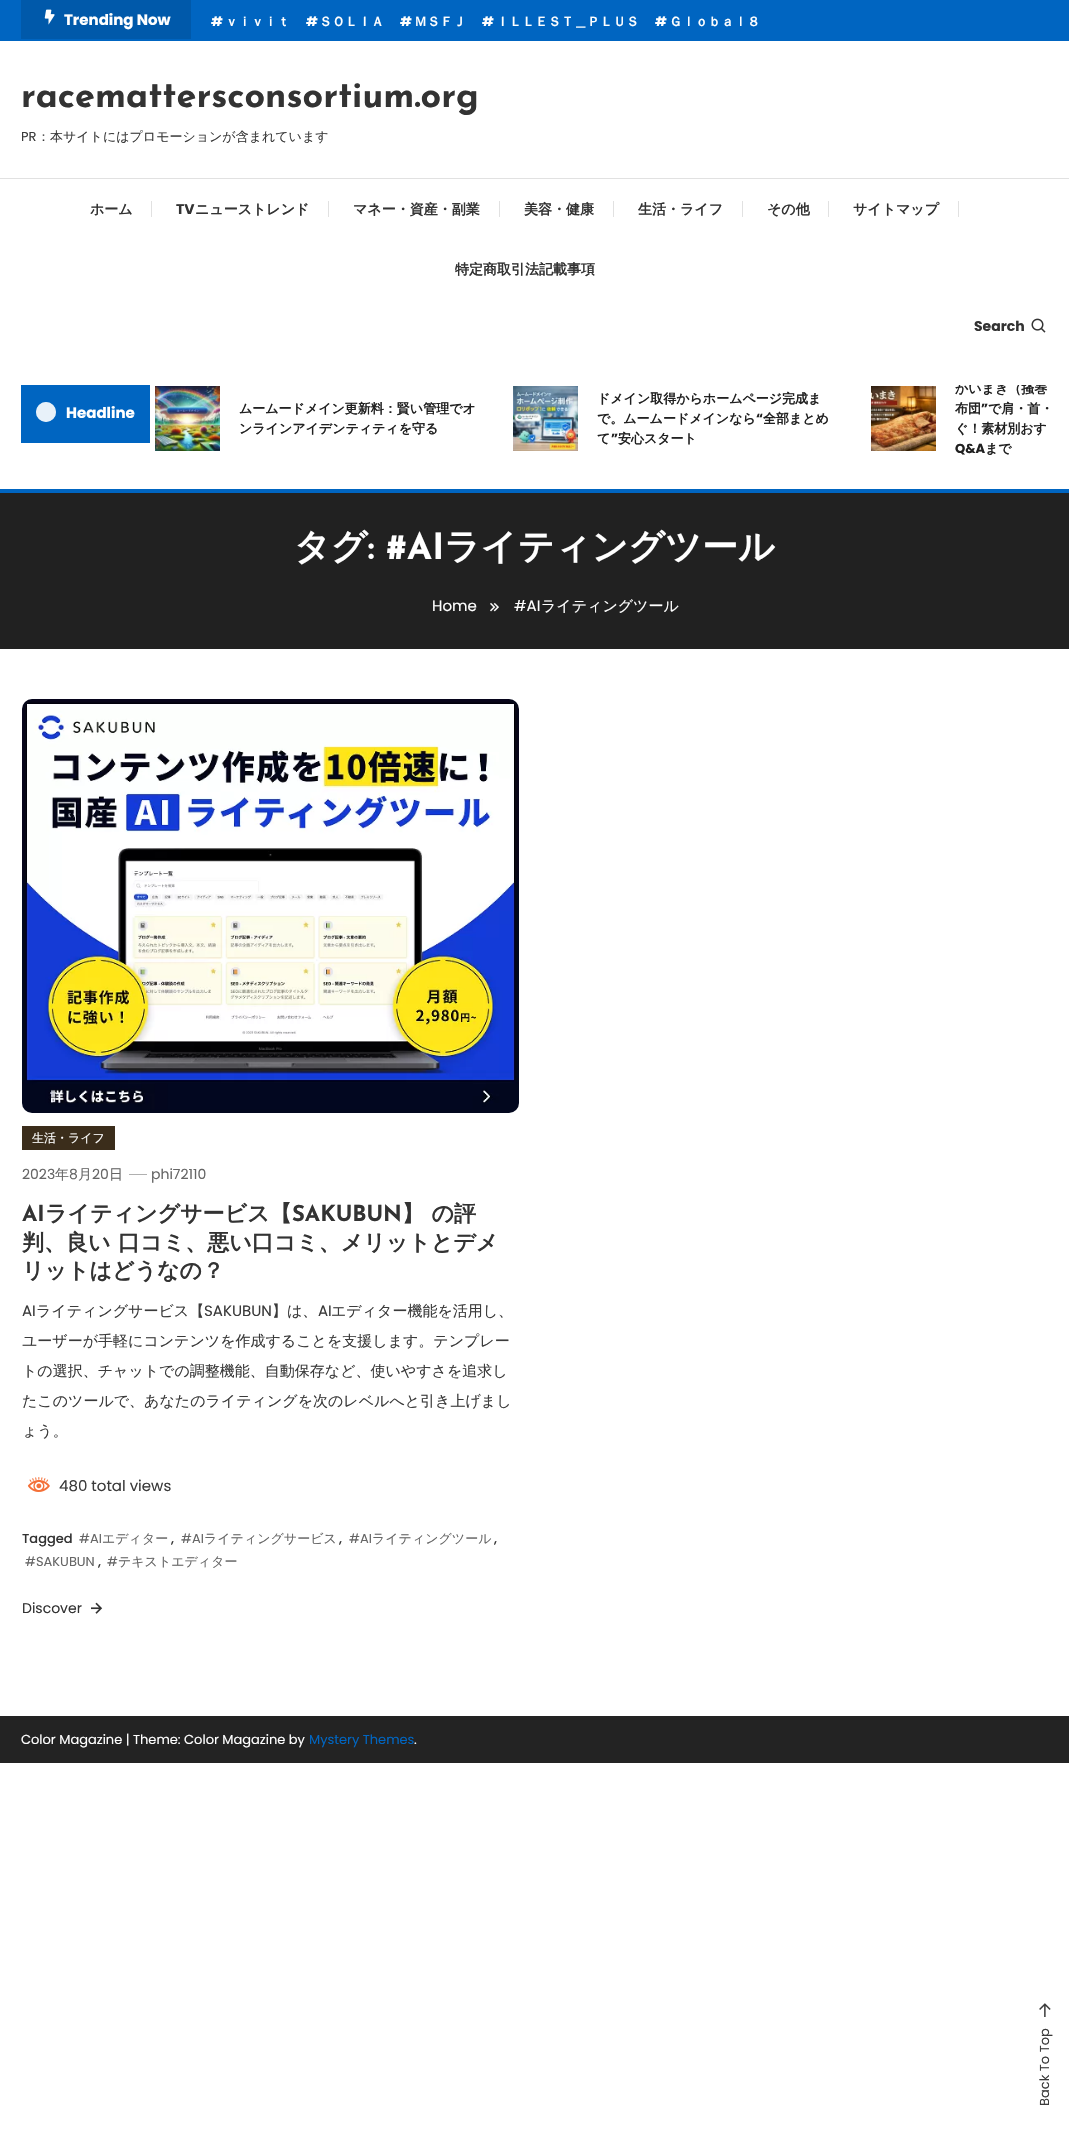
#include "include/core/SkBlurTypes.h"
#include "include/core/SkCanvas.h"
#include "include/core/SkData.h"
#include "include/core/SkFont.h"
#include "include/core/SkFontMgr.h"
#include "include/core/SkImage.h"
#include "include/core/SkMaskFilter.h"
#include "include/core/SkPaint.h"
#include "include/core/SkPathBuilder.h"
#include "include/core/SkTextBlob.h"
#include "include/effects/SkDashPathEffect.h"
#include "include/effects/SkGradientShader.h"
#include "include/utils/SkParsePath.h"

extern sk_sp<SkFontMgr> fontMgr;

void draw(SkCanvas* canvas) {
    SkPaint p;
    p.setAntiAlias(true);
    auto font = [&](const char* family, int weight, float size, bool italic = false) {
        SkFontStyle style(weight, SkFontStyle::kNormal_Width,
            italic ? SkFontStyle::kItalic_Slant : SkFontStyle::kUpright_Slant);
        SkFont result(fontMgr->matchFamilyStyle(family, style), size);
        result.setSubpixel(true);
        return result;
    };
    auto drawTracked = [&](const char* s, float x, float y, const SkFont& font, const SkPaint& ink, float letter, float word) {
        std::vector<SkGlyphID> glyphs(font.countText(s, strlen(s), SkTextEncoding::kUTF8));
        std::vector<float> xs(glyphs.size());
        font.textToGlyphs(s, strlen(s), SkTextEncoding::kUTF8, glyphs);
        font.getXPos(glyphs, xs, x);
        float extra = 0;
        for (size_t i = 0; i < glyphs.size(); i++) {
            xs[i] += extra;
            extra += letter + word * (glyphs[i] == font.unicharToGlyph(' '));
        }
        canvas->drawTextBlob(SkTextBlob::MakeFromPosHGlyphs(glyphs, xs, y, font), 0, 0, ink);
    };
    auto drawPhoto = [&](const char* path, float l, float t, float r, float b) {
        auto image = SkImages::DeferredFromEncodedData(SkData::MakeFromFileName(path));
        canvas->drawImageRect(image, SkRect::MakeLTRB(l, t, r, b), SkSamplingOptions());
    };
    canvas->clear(0xFFFFFFFF);
    p.setColor(0xFF0065C1);
    canvas->drawRect(SkRect::MakeLTRB(0, 0, 1069, 41), p);
    p.setColor(0xFF0059AA);
    canvas->drawRect(SkRect::MakeLTRB(21, 0, 191, 39), p);
    drawPhoto("media/1.png", 44, 9, 55, 25);
    auto font1 = font("Poppins", 700, 15);
    p.setColor(0xFFFFFFFF);
    canvas->drawString("Trending Now", 64, 25, font1, p);
    auto font2 = font("Poppins", 700, 13);
    canvas->drawString("#", 211, 26, font2, p);
    auto font3 = font("WenQuanYi Zen Hei", 700, 13);
    canvas->drawString("ｖｉｖｉｔ", 225, 26, font3, p);
    canvas->drawString("#", 306, 26, font2, p);
    canvas->drawString("ＳＯＬＩＡ", 319, 26, font3, p);
    canvas->drawString("#", 400, 26, font2, p);
    canvas->drawString("ＭＳＦＪ", 414, 26, font3, p);
    canvas->drawString("#", 482, 26, font2, p);
    canvas->drawString("ＩＬＬＥＳＴ＿ＰＬＵＳ", 496, 26, font3, p);
    canvas->drawString("#", 655, 26, font2, p);
    canvas->drawString("Ｇｌｏｂａｌ８", 669, 26, font3, p);
    auto font4 = font("Josefin Sans", 700, 36);
    p.setColor(0xFF333333);
    canvas->drawString("racemattersconsortium.org", 21, 107, font4, p);
    auto font5 = font("Poppins", 400, 13);
    p.setColor(0xFF3B3B3B);
    canvas->drawString("PR", 21, 141, font5, p);
    auto font6 = font("WenQuanYi Zen Hei", 500, 13);
    canvas->drawString("：本サイトにはプロモーションが含まれています", 37, 141, font6, p);
    p.setColor(0xFFE1E1E1);
    canvas->drawRect(SkRect::MakeLTRB(0, 178, 1069, 179), p);
    auto font7 = font("WenQuanYi Zen Hei", 700, 14);
    p.setColor(0xFF333333);
    canvas->drawString("ホーム", 90, 214, font7, p);
    p.setColor(0xFFE1E1E1);
    canvas->drawRect(SkRect::MakeLTRB(151, 201, 152, 217), p);
    auto font8 = font("Poppins", 700, 14);
    p.setColor(0xFF333333);
    canvas->drawString("TV", 176, 214, font8, p);
    canvas->drawString("ニューストレンド", 195, 214, font7, p);
    p.setColor(0xFFE1E1E1);
    canvas->drawRect(SkRect::MakeLTRB(328, 201, 329, 217), p);
    p.setColor(0xFF333333);
    canvas->drawString("マネー・資産・副業", 353, 214, font7, p);
    p.setColor(0xFFE1E1E1);
    canvas->drawRect(SkRect::MakeLTRB(499, 201, 500, 217), p);
    p.setColor(0xFF333333);
    canvas->drawString("美容・健康", 524, 214, font7, p);
    p.setColor(0xFFE1E1E1);
    canvas->drawRect(SkRect::MakeLTRB(613, 201, 614, 217), p);
    p.setColor(0xFF333333);
    canvas->drawString("生活・ライフ", 638, 214, font7, p);
    p.setColor(0xFFE1E1E1);
    canvas->drawRect(SkRect::MakeLTRB(742, 201, 743, 217), p);
    p.setColor(0xFF333333);
    canvas->drawString("その他", 767, 214, font7, p);
    p.setColor(0xFFE1E1E1);
    canvas->drawRect(SkRect::MakeLTRB(828, 201, 829, 217), p);
    p.setColor(0xFF333333);
    canvas->drawString("サイトマップ", 853, 214, font7, p);
    p.setColor(0xFFE1E1E1);
    canvas->drawRect(SkRect::MakeLTRB(958, 201, 959, 217), p);
    p.setColor(0xFF333333);
    canvas->drawString("特定商取引法記載事項", 455, 274, font7, p);
    canvas->drawString("Search", 974, 331, font8, p);
    drawPhoto("media/2.png", 1031, 318, 1046, 333);
    p.setColor(0xFF0065C1);
    canvas->drawRect(SkRect::MakeLTRB(21, 385, 150, 443), p);
    p.setColor(0xFFB3D1EC);
    canvas->drawCircle(46, 412, 10, p);
    p.setColor(0xB3FFFFFF);
    canvas->drawCircle(46, 412, 10, p);
    p.setColor(0xFFFFFFFF);
    canvas->drawString("Headline", 66, 418, font1, p);
    drawPhoto("media/3.png", 155, 386, 220, 451);
    p.setColor(0xFF212121);
    canvas->drawString("ムームードメイン更新料：賢い管理でオ", 239, 413, font3, p);
    canvas->drawString("ンラインアイデンティティを守る", 239, 433, font3, p);
    drawPhoto("media/4.png", 513, 386, 578, 451);
    canvas->drawString("ドメイン取得からホームページ完成ま", 597, 403, font3, p);
    canvas->drawString("で。ムームードメインなら", 597, 423, font3, p);
    canvas->drawString("“", 756, 423, font2, p);
    canvas->drawString("全部まとめ", 763, 423, font3, p);
    canvas->drawString("て", 597, 443, font3, p);
    canvas->drawString("”", 611, 443, font2, p);
    canvas->drawString("安心スタート", 618, 443, font3, p);
    drawPhoto("media/5.png", 871, 386, 936, 451);
    canvas->save();
    canvas->clipRect(SkRect::MakeLTRB(155, 385, 1048, 459));
    canvas->drawString("かいまき（掻巻", 955, 393, font3, p);
    canvas->restore();
    canvas->drawString("布団", 955, 413, font3, p);
    canvas->drawString("”", 981, 413, font2, p);
    canvas->drawString("で肩・首・", 988, 413, font3, p);
    canvas->drawString("ぐ！素材別おす", 955, 433, font3, p);
    canvas->drawString("Q&A", 955, 453, font2, p);
    canvas->drawString("まで", 985, 453, font3, p);
    canvas->drawRect(SkRect::MakeLTRB(0, 493, 1069, 649), p);
    p.setColor(0xFF0065C1);
    canvas->drawRect(SkRect::MakeLTRB(0, 489, 1069, 493), p);
    auto font9 = font("WenQuanYi Zen Hei", 700, 36);
    p.setColor(0xFFFFFFFF);
    canvas->drawString("タグ", 294, 559, font9, p);
    canvas->drawString(": #AI", 368, 559, font4, p);
    canvas->drawString("ライティングツール", 444, 559, font9, p);
    auto font10 = font("Poppins", 400, 15);
    canvas->drawString("Home", 432, 611, font10, p);
    drawPhoto("media/6.png", 490, 602, 499, 612);
    canvas->drawString("#AI", 514, 611, font10, p);
    auto font11 = font("WenQuanYi Zen Hei", 500, 15);
    canvas->drawString("ライティングツール", 541, 611, font11, p);
    drawPhoto("media/7.png", 22, 699, 519, 1113);
    p.setColor(0xFF3B2D1B);
    canvas->drawRect(SkRect::MakeLTRB(22, 1126, 115, 1150), p);
    auto font12 = font("WenQuanYi Zen Hei", 500, 12);
    p.setColor(0xFFFFFFFF);
    canvas->drawString("生活・ライフ", 32, 1142, font12, p);
    auto font13 = font("Poppins", 400, 14);
    p.setColor(0xFF666666);
    canvas->drawString("2023", 22, 1179, font13, p);
    auto font14 = font("WenQuanYi Zen Hei", 500, 14);
    canvas->drawString("年", 55, 1179, font14, p);
    canvas->drawString("8", 69, 1179, font13, p);
    canvas->drawString("月", 78, 1179, font14, p);
    canvas->drawString("20", 92, 1179, font13, p);
    canvas->drawString("日", 109, 1179, font14, p);
    p.setColor(0xFFB0B0B0);
    canvas->drawRect(SkRect::MakeLTRB(129, 1174, 147, 1175), p);
    p.setColor(0xFF666666);
    canvas->drawString("phi72110", 151, 1179, font13, p);
    auto font15 = font("Josefin Sans", 700, 22);
    p.setColor(0xFF333333);
    canvas->drawString("AI", 22, 1221, font15, p);
    auto font16 = font("WenQuanYi Zen Hei", 700, 22);
    canvas->drawString("ライティングサービス【", 45, 1221, font16, p);
    canvas->drawString("SAKUBUN", 292, 1221, font15, p);
    drawTracked("】 の評", 402, 1221, font16, p, 0, 1);
    drawTracked("判、良い 口コミ、悪い口コミ、メリットとデメ", 22, 1250, font16, p, 0, 1);
    canvas->drawString("リットはどうなの？", 22, 1278, font16, p);
    p.setColor(0xFF3B3B3B);
    canvas->drawString("AI", 22, 1316, font10, p);
    canvas->drawString("ライティングサービス【", 36, 1316, font11, p);
    canvas->drawString("SAKUBUN", 204, 1316, font10, p);
    canvas->drawString("】は、", 272, 1316, font11, p);
    canvas->drawString("AI", 318, 1316, font10, p);
    {
        const struct { const char* s; float x, y; } items[] = {
            {"エディター機能を活用し、", 331, 1316},
            {"ユーザーが手軽にコンテンツを作成することを支援します。テンプレー", 22, 1346},
            {"トの選択、チャットでの調整機能、自動保存など、使いやすさを追求し", 22, 1376},
            {"たこのツールで、あなたのライティングを次のレベルへと引き上げまし", 22, 1406},
            {"ょう。", 22, 1436},
        };
        for (auto [s, x, y] : items) {
            canvas->drawString(s, x, y, font11, p);
        }
    }
    drawPhoto("media/8.png", 27, 1477, 50, 1492);
    canvas->drawString("480 total views", 59, 1491, font10, p);
    auto font17 = font("Poppins", 500, 13);
    p.setColor(0xFF333333);
    canvas->drawString("Tagged", 22, 1543, font17, p);
    p.setColor(0xFF666666);
    canvas->drawString("#AI", 79, 1543, font5, p);
    canvas->drawString("エディター", 102, 1543, font6, p);
    p.setColor(0xFF333333);
    canvas->drawString(",", 171, 1543, font17, p);
    p.setColor(0xFF666666);
    canvas->drawString("#AI", 181, 1543, font5, p);
    canvas->drawString("ライティングサービス", 204, 1543, font6, p);
    p.setColor(0xFF333333);
    canvas->drawString(",", 339, 1543, font17, p);
    p.setColor(0xFF666666);
    canvas->drawString("#AI", 349, 1543, font5, p);
    canvas->drawString("ライティングツール", 372, 1543, font6, p);
    p.setColor(0xFF333333);
    canvas->drawString(",", 494, 1543, font17, p);
    p.setColor(0xFF666666);
    canvas->drawString("#SAKUBUN", 25, 1566, font5, p);
    p.setColor(0xFF333333);
    canvas->drawString(",", 98, 1566, font17, p);
    p.setColor(0xFF666666);
    canvas->drawString("#", 107, 1566, font5, p);
    canvas->drawString("テキストエディター", 118, 1566, font6, p);
    p.setColor(0xFF333333);
    canvas->drawString("Discover", 22, 1613, font13, p);
    drawPhoto("media/9.png", 91, 1602, 103, 1614);
    p.setColor(0xFF232323);
    canvas->drawRect(SkRect::MakeLTRB(0, 1716, 1069, 1763), p);
    p.setColor(0xFFFFFFFF);
    canvas->drawString("Color Magazine | Theme: Color Magazine by", 21, 1744, font5, p);
    p.setColor(0xFF0065C1);
    canvas->drawString("Mystery Themes", 309, 1744, font5, p);
    p.setColor(0xFFFFFFFF);
    canvas->drawString(".", 414, 1744, font5, p);
    drawPhoto("media/10.png", 1039, 2003, 1051, 2017);
    p.setColor(0xFF3B3B3B);
    canvas->save();
    canvas->rotate(-90, 1049, 2106);
    canvas->drawString("Back To Top", 1049, 2106, font5, p);
    canvas->restore();
}
